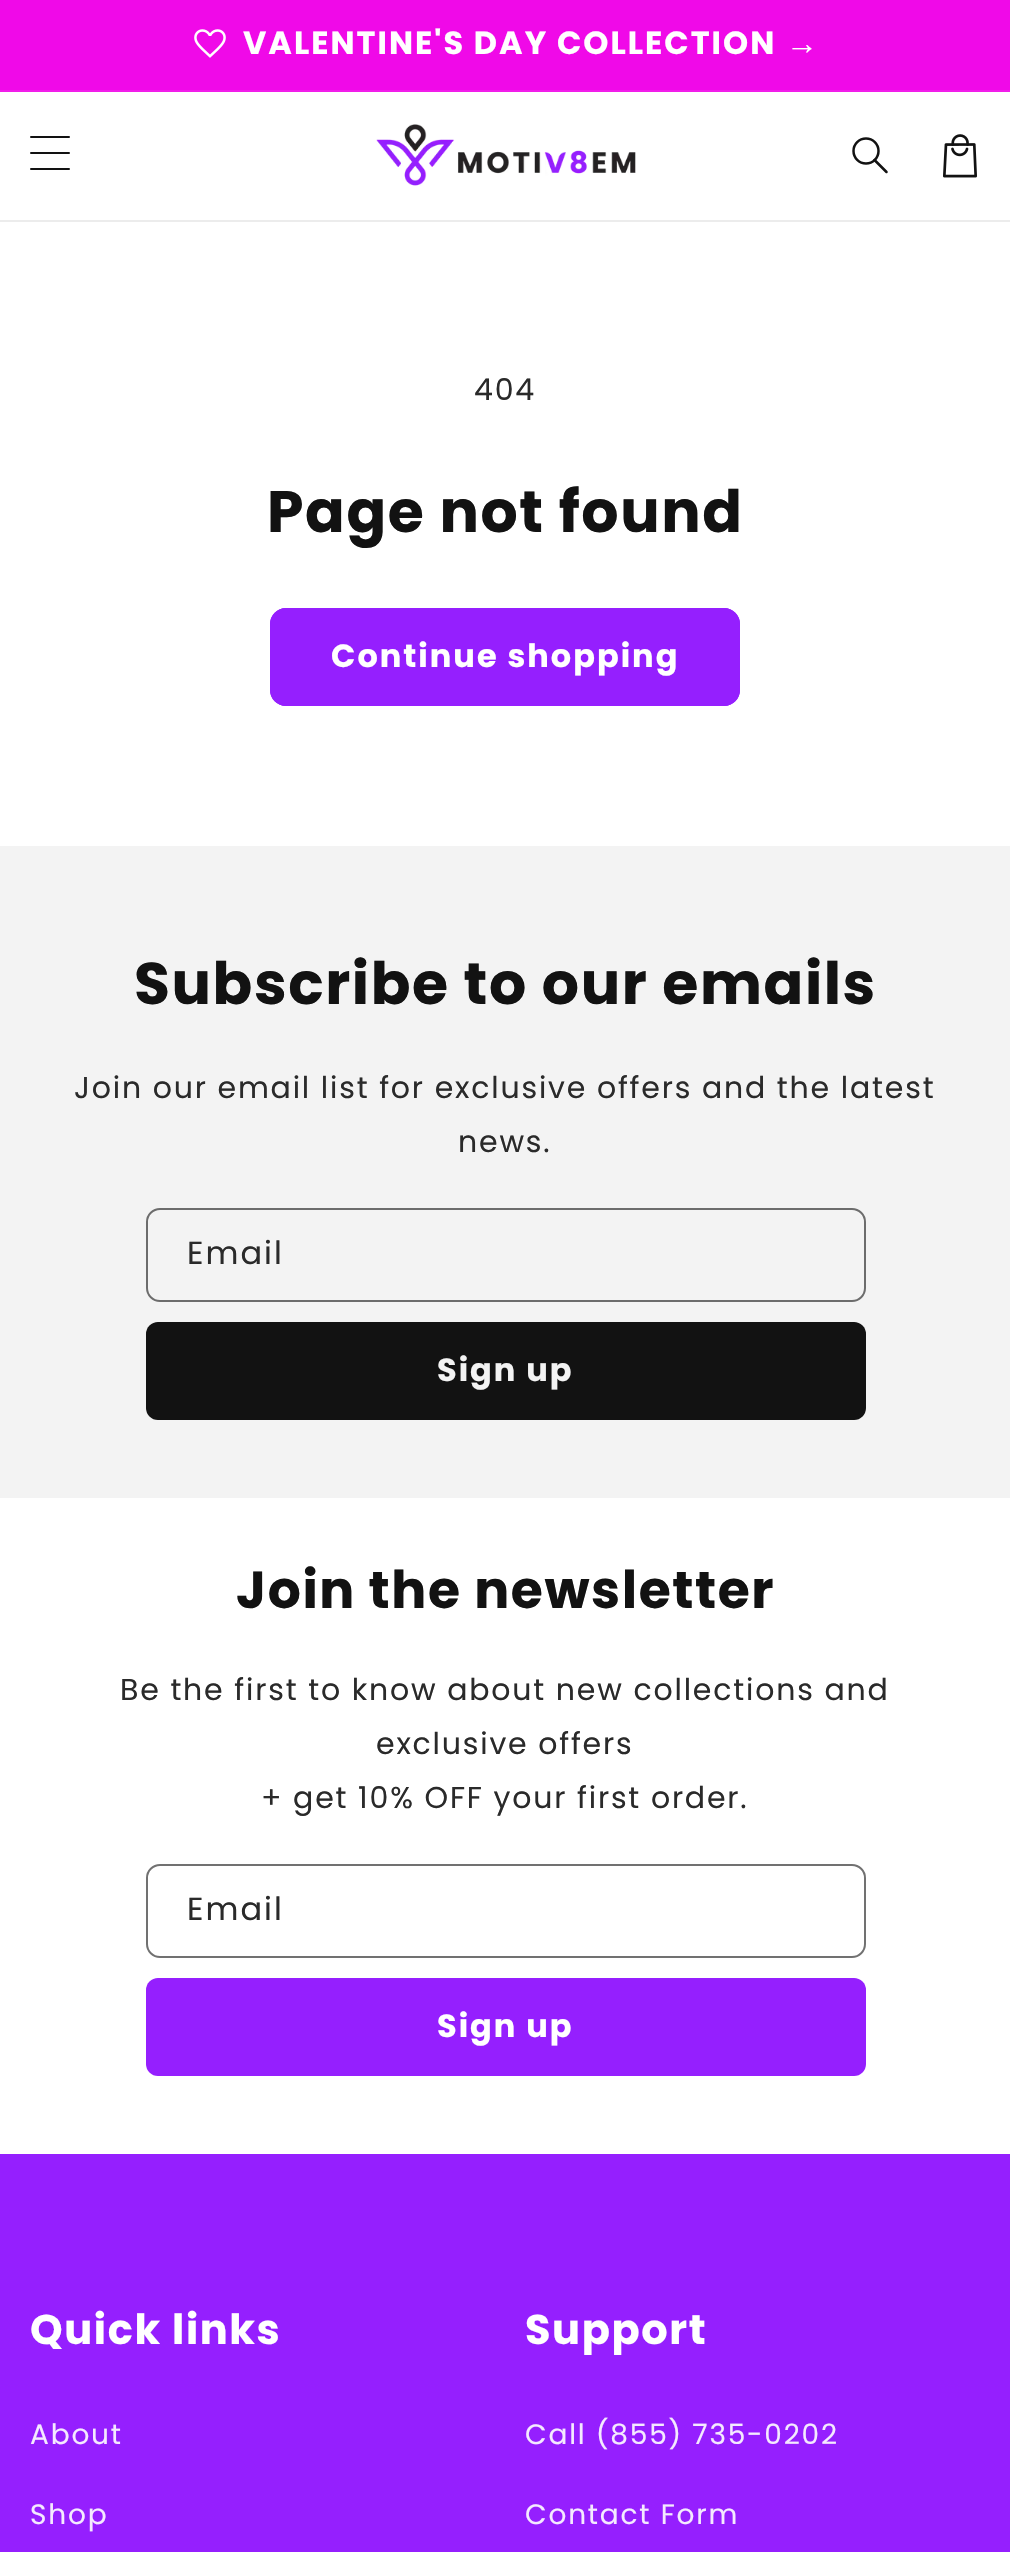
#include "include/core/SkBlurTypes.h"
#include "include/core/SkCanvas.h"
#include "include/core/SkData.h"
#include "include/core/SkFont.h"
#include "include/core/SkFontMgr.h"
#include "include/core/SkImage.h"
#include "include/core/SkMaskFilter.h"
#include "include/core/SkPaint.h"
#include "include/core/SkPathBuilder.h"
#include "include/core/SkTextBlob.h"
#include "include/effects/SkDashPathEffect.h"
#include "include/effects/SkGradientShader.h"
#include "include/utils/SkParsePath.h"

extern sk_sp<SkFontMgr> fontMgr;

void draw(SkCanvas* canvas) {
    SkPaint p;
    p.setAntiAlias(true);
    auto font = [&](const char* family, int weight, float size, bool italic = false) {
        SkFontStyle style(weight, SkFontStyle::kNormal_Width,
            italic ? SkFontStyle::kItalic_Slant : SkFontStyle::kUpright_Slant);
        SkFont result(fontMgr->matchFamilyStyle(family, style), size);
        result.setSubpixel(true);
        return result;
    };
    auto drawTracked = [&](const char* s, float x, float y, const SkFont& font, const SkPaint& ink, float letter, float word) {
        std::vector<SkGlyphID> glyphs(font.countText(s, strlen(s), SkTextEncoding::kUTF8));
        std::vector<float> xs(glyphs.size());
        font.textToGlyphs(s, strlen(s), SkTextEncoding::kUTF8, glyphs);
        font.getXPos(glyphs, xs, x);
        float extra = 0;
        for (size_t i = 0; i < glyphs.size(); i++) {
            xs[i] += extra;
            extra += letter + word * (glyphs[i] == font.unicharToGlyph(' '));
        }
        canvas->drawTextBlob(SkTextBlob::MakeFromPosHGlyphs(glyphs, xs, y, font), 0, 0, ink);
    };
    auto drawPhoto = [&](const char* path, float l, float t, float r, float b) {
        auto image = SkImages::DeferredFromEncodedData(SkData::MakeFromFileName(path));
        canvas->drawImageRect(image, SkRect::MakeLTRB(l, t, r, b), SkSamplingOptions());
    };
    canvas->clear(0xFFFFFFFF);
    p.setColor(0xFFF009E8);
    canvas->drawRect(SkRect::MakeLTRB(0, 0, 1010, 90), p);
    p.setColor(0xFFF11DEA);
    canvas->drawRect(SkRect::MakeLTRB(0, 90, 1010, 92), p);
    drawPhoto("media/1.png", 194, 29, 226, 58);
    auto font1 = font("Poppins", 700, 32);
    p.setColor(0xFFFFFFFF);
    drawTracked("VALENTINE'S DAY COLLECTION", 243, 54, font1, p, 2, 0);
    auto font2 = font("Liberation Sans", 700, 32);
    drawTracked("→", 786, 54, font2, p, 2, 0);
    p.setColor(0xFFECECEC);
    canvas->drawRect(SkRect::MakeLTRB(0, 220, 1010, 222), p);
    p.setColor(0xFF121212);
    canvas->drawRoundRect(SkRect::MakeLTRB(30, 136, 70, 138), 1, 1, p);
    canvas->drawRoundRect(SkRect::MakeLTRB(30, 152, 70, 154), 1, 1, p);
    canvas->drawRoundRect(SkRect::MakeLTRB(30, 168, 70, 170), 1, 1, p);
    drawPhoto("media/2.png", 376, 124, 636, 186);
    p.setStyle(SkPaint::kStroke_Style);
    p.setStrokeWidth(2.5f);
    canvas->drawCircle(866, 151, 12.5f, p);
    p.setStrokeCap(SkPaint::kRound_Cap);
    p.setStrokeJoin(SkPaint::kRound_Join);
    canvas->drawPath(SkPathBuilder().moveTo(886.5f, 172).lineTo(874.5f, 160).detach(), p);
    drawPhoto("media/3.png", 943, 134, 977, 178);
    auto font3 = font("Poppins", 400, 30);
    p.setStyle(SkPaint::kFill_Style);
    p.setColor(0xFF2A2A2A);
    drawTracked("404", 474, 400, font3, p, 1.8f, 0);
    auto font4 = font("Poppins", 700, 58.5f);
    p.setColor(0xFF121212);
    drawTracked("Page not found", 267, 532, font4, p, 1.6f, 0);
    p.setColor(0xFF951FFE);
    canvas->drawRoundRect(SkRect::MakeLTRB(270, 608, 740, 706), 16, 16, p);
    p.setStyle(SkPaint::kStroke_Style);
    p.setStrokeWidth(4);
    p.setStrokeCap(SkPaint::kButt_Cap);
    p.setStrokeJoin(SkPaint::kMiter_Join);
    canvas->drawRoundRect(SkRect::MakeLTRB(272, 610, 738, 704), 14, 14, p);
    p.setStyle(SkPaint::kFill_Style);
    p.setColor(0xFFFFFFFF);
    drawTracked("Continue shopping", 331, 667, font1, p, 2, 0);
    p.setColor(0xFFF3F3F3);
    canvas->drawRect(SkRect::MakeLTRB(0, 846, 1010, 1498), p);
    p.setColor(0xFF121212);
    drawTracked("Subscribe to our emails", 134, 1004, font4, p, 1.6f, 0);
    p.setColor(0xFF2A2A2A);
    drawTracked("Join our email list for exclusive offers and the latest", 74, 1098, font3, p, 1.8f, 0);
    drawTracked("news.", 458, 1152, font3, p, 1.8f, 0);
    p.setStyle(SkPaint::kStroke_Style);
    p.setStrokeWidth(2);
    p.setColor(0xFF6C6C6C);
    canvas->drawRoundRect(SkRect::MakeLTRB(147, 1209, 865, 1301), 13, 13, p);
    auto font5 = font("Poppins", 400, 32);
    p.setStyle(SkPaint::kFill_Style);
    p.setColor(0xFF2A2A2A);
    drawTracked("Email", 187, 1264, font5, p, 2, 0);
    p.setStyle(SkPaint::kStroke_Style);
    p.setStrokeWidth(4);
    p.setColor(0xFF121212);
    canvas->drawRoundRect(SkRect::MakeLTRB(148, 1324, 864, 1418), 14, 14, p);
    p.setStyle(SkPaint::kFill_Style);
    canvas->drawRoundRect(SkRect::MakeLTRB(146, 1322, 866, 1420), 12, 12, p);
    p.setColor(0xFFF3F3F3);
    drawTracked("Sign up", 437, 1381, font1, p, 2, 0);
    auto font6 = font("Poppins", 700, 52);
    p.setColor(0xFF121212);
    drawTracked("Join the newsletter", 236, 1608, font6, p, 1.6f, 0);
    p.setColor(0xFF2A2A2A);
    {
        const struct { const char* s; float x, y; } items[] = {
            {"Be the first to know about new collections and", 120, 1700},
            {"exclusive offers", 376, 1754},
            {"+ get 10% OFF your first order.", 261, 1808},
        };
        for (auto [s, x, y] : items) {
            drawTracked(s, x, y, font3, p, 1.8f, 0);
        }
    }
    p.setStyle(SkPaint::kStroke_Style);
    p.setStrokeWidth(2);
    p.setColor(0xFF717171);
    canvas->drawRoundRect(SkRect::MakeLTRB(147, 1865, 865, 1957), 13, 13, p);
    p.setStyle(SkPaint::kFill_Style);
    p.setColor(0xFF2A2A2A);
    drawTracked("Email", 187, 1920, font5, p, 2, 0);
    p.setStyle(SkPaint::kStroke_Style);
    p.setStrokeWidth(4);
    p.setColor(0xFF951FFE);
    canvas->drawRoundRect(SkRect::MakeLTRB(148, 1980, 864, 2074), 14, 14, p);
    p.setStyle(SkPaint::kFill_Style);
    canvas->drawRoundRect(SkRect::MakeLTRB(146, 1978, 866, 2076), 12, 12, p);
    p.setColor(0xFFFFFFFF);
    drawTracked("Sign up", 437, 2037, font1, p, 2, 0);
    p.setColor(0xFF951FFE);
    canvas->drawRect(SkRect::MakeLTRB(0, 2154, 1010, 2552), p);
    auto font7 = font("Poppins", 700, 41.5f);
    p.setColor(0xFFFFFFFF);
    drawTracked("Quick links", 30, 2344, font7, p, 1.6f, 0);
    auto font8 = font("Poppins", 400, 28);
    p.setColor(0xFFF4E9FF);
    drawTracked("About", 30, 2444, font8, p, 1.8f, 0);
    drawTracked("Shop", 30, 2524, font8, p, 1.8f, 0);
    p.setColor(0xFFFFFFFF);
    drawTracked("Support", 525, 2344, font7, p, 1.6f, 0);
    p.setColor(0xFFF4E9FF);
    drawTracked("Call (855) 735-0202", 525, 2444, font8, p, 1.8f, 0);
    drawTracked("Contact Form", 525, 2524, font8, p, 1.8f, 0);
}
